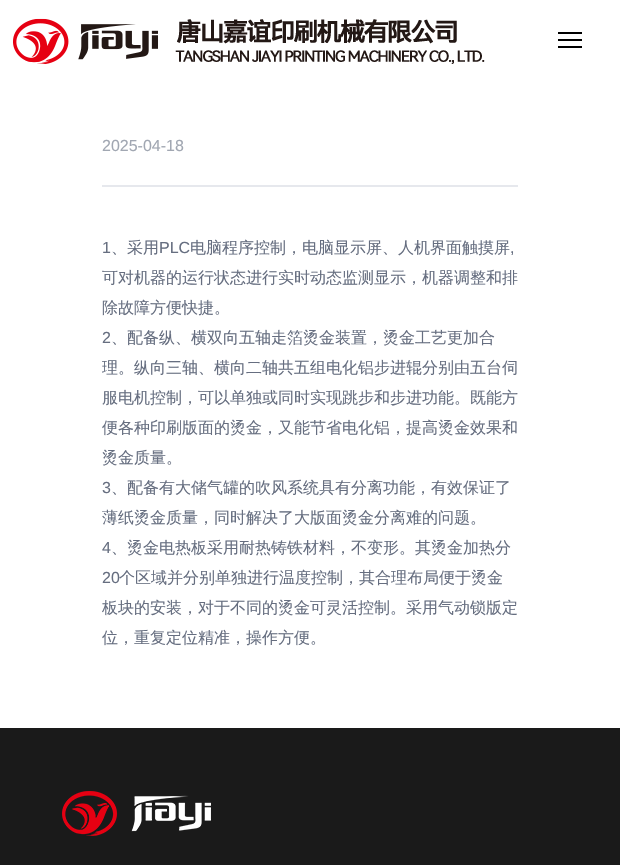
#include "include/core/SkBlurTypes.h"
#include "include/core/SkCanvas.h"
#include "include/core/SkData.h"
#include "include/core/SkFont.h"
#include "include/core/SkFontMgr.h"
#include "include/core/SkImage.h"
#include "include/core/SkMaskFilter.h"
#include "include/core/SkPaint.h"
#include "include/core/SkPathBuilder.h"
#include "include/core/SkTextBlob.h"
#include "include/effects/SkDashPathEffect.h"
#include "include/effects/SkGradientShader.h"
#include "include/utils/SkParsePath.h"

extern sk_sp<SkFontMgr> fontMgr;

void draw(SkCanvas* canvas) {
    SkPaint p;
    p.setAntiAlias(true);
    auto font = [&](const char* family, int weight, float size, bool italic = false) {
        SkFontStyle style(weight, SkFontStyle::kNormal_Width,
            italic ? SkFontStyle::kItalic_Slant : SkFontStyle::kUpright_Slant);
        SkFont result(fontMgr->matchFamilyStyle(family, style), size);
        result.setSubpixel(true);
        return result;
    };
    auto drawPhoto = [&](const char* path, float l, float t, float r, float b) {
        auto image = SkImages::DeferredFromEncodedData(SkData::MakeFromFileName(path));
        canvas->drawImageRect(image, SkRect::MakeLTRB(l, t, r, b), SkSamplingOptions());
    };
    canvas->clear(0xFFFFFFFF);
    drawPhoto("media/1.png", 13, 18, 485, 64);
    {
        const struct { float l, t, r, b; SkColor color; } items[] = {
            {558, 39, 582, 41, 0xFF000000},
            {558, 32, 582, 34, 0xFF000000},
            {558, 46, 582, 48, 0xFF000000},
            {102, 185, 518, 187, 0xFFE6E8ED},
        };
        for (auto [l, t, r, b, color] : items) {
            p.setColor(color);
            canvas->drawRect(SkRect::MakeLTRB(l, t, r, b), p);
        }
    }
    auto font1 = font("Liberation Sans", 400, 16);
    p.setColor(0xFFA1A7B2);
    canvas->drawString("2025-04-18", 102, 151, font1, p);
    p.setColor(0xFF666E80);
    canvas->drawString("1", 102, 253, font1, p);
    auto font2 = font("WenQuanYi Zen Hei", 500, 16);
    canvas->drawString("、采用", 111, 253, font2, p);
    canvas->drawString("PLC", 159, 253, font1, p);
    canvas->drawString("电脑程序控制，电脑显示屏、人机界面触摸屏", 190, 253, font2, p);
    canvas->drawString(",", 510, 253, font1, p);
    canvas->drawString("可对机器的运行状态进行实时动态监测显示，机器调整和排", 102, 283, font2, p);
    canvas->drawString("除故障方便快捷。", 102, 313, font2, p);
    canvas->drawString("2", 102, 343, font1, p);
    {
        const struct { const char* s; float x, y; } items[] = {
            {"、配备纵、横双向五轴走箔烫金装置，烫金工艺更加合", 111, 343},
            {"理。纵向三轴、横向二轴共五组电化铝步进辊分别由五台伺", 102, 373},
            {"服电机控制，可以单独或同时实现跳步和步进功能。既能方", 102, 403},
            {"便各种印刷版面的烫金，又能节省电化铝，提高烫金效果和", 102, 433},
            {"烫金质量。", 102, 463},
        };
        for (auto [s, x, y] : items) {
            canvas->drawString(s, x, y, font2, p);
        }
    }
    canvas->drawString("3", 102, 493, font1, p);
    canvas->drawString("、配备有大储气罐的吹风系统具有分离功能，有效保证了", 111, 493, font2, p);
    canvas->drawString("薄纸烫金质量，同时解决了大版面烫金分离难的问题。", 102, 523, font2, p);
    canvas->drawString("4", 102, 553, font1, p);
    canvas->drawString("、烫金电热板采用耐热铸铁材料，不变形。其烫金加热分", 111, 553, font2, p);
    canvas->drawString("20", 102, 583, font1, p);
    {
        const struct { const char* s; float x, y; } items[] = {
            {"个区域并分别单独进行温度控制，其合理布局便于烫金", 119, 583},
            {"板块的安装，对于不同的烫金可灵活控制。采用气动锁版定", 102, 613},
            {"位，重复定位精准，操作方便。", 102, 643},
        };
        for (auto [s, x, y] : items) {
            canvas->drawString(s, x, y, font2, p);
        }
    }
    p.setColor(0xFF1A1A1A);
    canvas->drawRect(SkRect::MakeLTRB(0, 728, 620, 865), p);
    drawPhoto("media/2.png", 62, 791, 211, 836);
}
